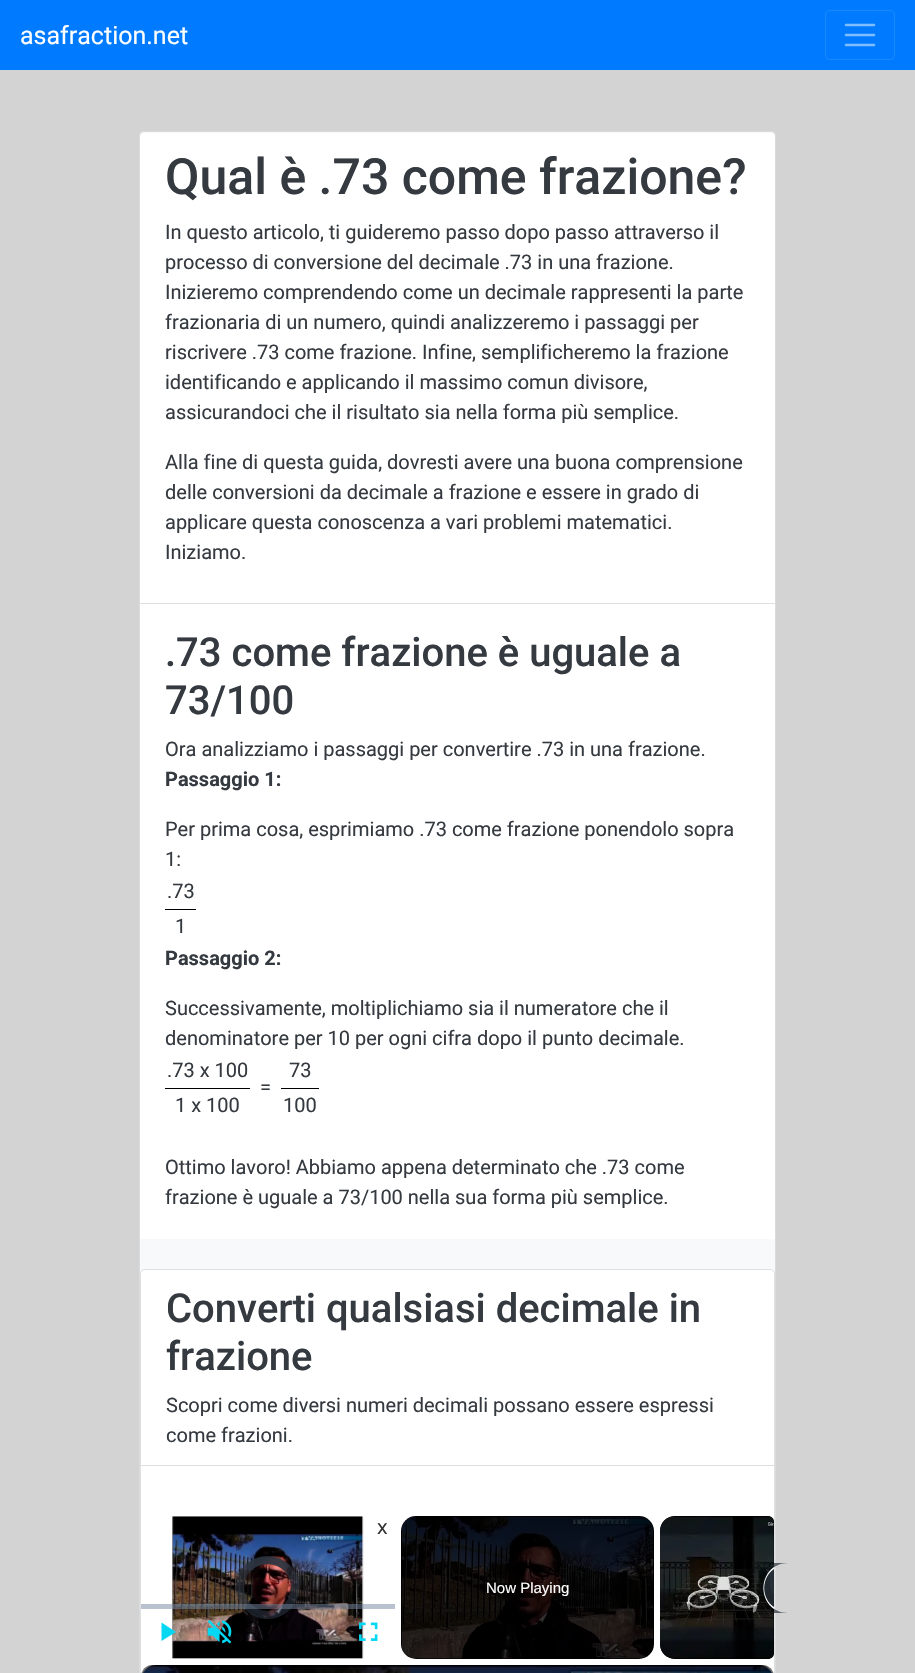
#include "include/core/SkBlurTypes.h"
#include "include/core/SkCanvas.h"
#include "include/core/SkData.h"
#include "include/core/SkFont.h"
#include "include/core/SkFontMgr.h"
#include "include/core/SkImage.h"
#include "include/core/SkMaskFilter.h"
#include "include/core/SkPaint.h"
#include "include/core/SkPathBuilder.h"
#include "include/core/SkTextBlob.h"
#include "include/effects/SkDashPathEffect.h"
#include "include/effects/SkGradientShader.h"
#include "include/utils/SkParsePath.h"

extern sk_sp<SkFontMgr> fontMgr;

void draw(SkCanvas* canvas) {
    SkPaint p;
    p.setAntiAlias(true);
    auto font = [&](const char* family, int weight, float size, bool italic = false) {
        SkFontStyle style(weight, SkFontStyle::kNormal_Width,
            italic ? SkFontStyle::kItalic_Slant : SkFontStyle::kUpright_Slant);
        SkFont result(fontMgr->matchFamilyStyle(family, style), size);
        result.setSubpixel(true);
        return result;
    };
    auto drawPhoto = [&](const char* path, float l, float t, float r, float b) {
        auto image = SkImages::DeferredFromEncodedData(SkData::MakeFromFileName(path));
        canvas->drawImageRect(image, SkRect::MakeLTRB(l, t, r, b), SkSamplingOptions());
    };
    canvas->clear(0xFFD3D3D3);
    p.setColor(0xFF007BFF);
    canvas->drawRect(SkRect::MakeLTRB(0, 0, 915, 70), p);
    auto font1 = font("Roboto", 400, 25);
    p.setColor(0xFFFFFFFF);
    canvas->drawString("asafraction.net", 20, 44, font1, p);
    p.setStyle(SkPaint::kStroke_Style);
    p.setStrokeWidth(1);
    p.setColor(0xFF1A88FF);
    canvas->drawRoundRect(SkRect::MakeLTRB(825.5f, 10.5f, 894.5f, 59.5f), 4.5f, 4.5f, p);
    p.setStrokeWidth(2.5f);
    p.setStrokeCap(SkPaint::kRound_Cap);
    p.setColor(0xFF80BDFF);
    canvas->drawPath(SkPathBuilder().moveTo(846, 25).lineTo(874, 25).moveTo(846, 35).lineTo(874, 35).moveTo(846, 45).lineTo(874, 45).detach(), p);
    p.setStyle(SkPaint::kFill_Style);
    p.setColor(0xFFF8F9FA);
    canvas->drawRoundRect(SkRect::MakeLTRB(139, 131, 776, 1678), 5, 5, p);
    p.setStyle(SkPaint::kStroke_Style);
    p.setStrokeWidth(1);
    p.setStrokeCap(SkPaint::kButt_Cap);
    p.setColor(0x1F000000);
    canvas->drawRoundRect(SkRect::MakeLTRB(139.5f, 131.5f, 775.5f, 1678.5f), 4.5f, 4.5f, p);
    p.setStyle(SkPaint::kFill_Style);
    p.setColor(0xFFFFFFFF);
    canvas->drawPath(SkPathBuilder().moveTo(144, 133).lineTo(771, 133).cubicTo(773, 133, 775, 135, 775, 137).lineTo(775, 604).lineTo(140, 604).lineTo(140, 137).cubicTo(140, 135, 142, 133, 144, 133).close().detach(), p);
    p.setColor(0xFFDFDFDF);
    canvas->drawRect(SkRect::MakeLTRB(140, 603, 775, 604), p);
    auto font2 = font("Roboto", 500, 50);
    p.setColor(0xFF343A40);
    canvas->drawString("Qual è .73 come frazione?", 165, 194, font2, p);
    auto font3 = font("Roboto", 400, 20);
    {
        const struct { const char* s; float x, y; } items[] = {
            {"In questo articolo, ti guideremo passo dopo passo attraverso il", 165, 239},
            {"processo di conversione del decimale .73 in una frazione.", 165, 269},
            {"Inizieremo comprendendo come un decimale rappresenti la parte", 165, 299},
            {"frazionaria di un numero, quindi analizzeremo i passaggi per", 165, 329},
            {"riscrivere .73 come frazione. Infine, semplificheremo la frazione", 165, 359},
            {"identificando e applicando il massimo comun divisore,", 165, 389},
            {"assicurandoci che il risultato sia nella forma più semplice.", 165, 419},
            {"Alla fine di questa guida, dovresti avere una buona comprensione", 165, 469},
            {"delle conversioni da decimale a frazione e essere in grado di", 165, 499},
            {"applicare questa conoscenza a vari problemi matematici.", 165, 529},
            {"Iniziamo.", 165, 559},
        };
        for (auto [s, x, y] : items) {
            canvas->drawString(s, x, y, font3, p);
        }
    }
    p.setColor(0xFFFFFFFF);
    canvas->drawRect(SkRect::MakeLTRB(140, 604, 775, 1239), p);
    auto font4 = font("Roboto", 500, 40);
    p.setColor(0xFF343A40);
    canvas->drawString(".73 come frazione è uguale a", 165, 666, font4, p);
    canvas->drawString("73/100", 165, 714, font4, p);
    canvas->drawString("Ora analizziamo i passaggi per convertire .73 in una frazione.", 165, 756, font3, p);
    auto font5 = font("Roboto", 700, 20);
    canvas->drawString("Passaggio 1:", 165, 786, font5, p);
    {
        const struct { const char* s; float x, y; } items[] = {
            {"Per prima cosa, esprimiamo .73 come frazione ponendolo sopra", 165, 836},
            {"1:", 165, 866},
            {".73", 167, 898},
        };
        for (auto [s, x, y] : items) {
            canvas->drawString(s, x, y, font3, p);
        }
    }
    p.setColor(0xFF000000);
    canvas->drawRect(SkRect::MakeLTRB(165, 909, 196, 910), p);
    p.setColor(0xFF343A40);
    canvas->drawString("1", 175, 933, font3, p);
    canvas->drawString("Passaggio 2:", 165, 965, font5, p);
    {
        const struct { const char* s; float x, y; } items[] = {
            {"Successivamente, moltiplichiamo sia il numeratore che il", 165, 1015},
            {"denominatore per 10 per ogni cifra dopo il punto decimale.", 165, 1045},
            {".73 x 100", 167, 1077},
        };
        for (auto [s, x, y] : items) {
            canvas->drawString(s, x, y, font3, p);
        }
    }
    p.setColor(0xFF000000);
    canvas->drawRect(SkRect::MakeLTRB(165, 1088, 250, 1089), p);
    p.setColor(0xFF343A40);
    {
        const struct { const char* s; float x, y; } items[] = {
            {"1 x 100", 175, 1112},
            {"=", 260, 1094},
            {"73", 289, 1077},
        };
        for (auto [s, x, y] : items) {
            canvas->drawString(s, x, y, font3, p);
        }
    }
    p.setColor(0xFF000000);
    canvas->drawRect(SkRect::MakeLTRB(281, 1088, 319, 1089), p);
    p.setColor(0xFF343A40);
    {
        const struct { const char* s; float x, y; } items[] = {
            {"100", 283, 1112},
            {"Ottimo lavoro! Abbiamo appena determinato che .73 come", 165, 1174},
            {"frazione è uguale a 73/100 nella sua forma più semplice.", 165, 1204},
        };
        for (auto [s, x, y] : items) {
            canvas->drawString(s, x, y, font3, p);
        }
    }
    p.setColor(0xFFFFFFFF);
    canvas->drawRoundRect(SkRect::MakeLTRB(140, 1269, 775, 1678), 5, 5, p);
    p.setStyle(SkPaint::kStroke_Style);
    p.setColor(0x1F000000);
    canvas->drawRoundRect(SkRect::MakeLTRB(140.5f, 1269.5f, 774.5f, 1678.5f), 4.5f, 4.5f, p);
    p.setStyle(SkPaint::kFill_Style);
    p.setColor(0xFFFFFFFF);
    canvas->drawPath(SkPathBuilder().moveTo(145, 1270).lineTo(770, 1270).cubicTo(772, 1270, 774, 1272, 774, 1274).lineTo(774, 1466).lineTo(141, 1466).lineTo(141, 1274).cubicTo(141, 1272, 143, 1270, 145, 1270).close().detach(), p);
    p.setColor(0xFFDFDFDF);
    canvas->drawRect(SkRect::MakeLTRB(141, 1465, 774, 1466), p);
    p.setColor(0xFF343A40);
    canvas->drawString("Converti qualsiasi decimale in", 166, 1322, font4, p);
    canvas->drawString("frazione", 166, 1370, font4, p);
    canvas->drawString("Scopri come diversi numeri decimali possano essere espressi", 166, 1412, font3, p);
    canvas->drawString("come frazioni.", 166, 1442, font3, p);
    drawPhoto("media/1.png", 172, 1516, 364, 1659);
    p.setStyle(SkPaint::kStroke_Style);
    p.setStrokeWidth(8);
    p.setColor(0x962B333F);
    canvas->drawCircle(267.5f, 1587.5f, 27.5f, p);
    p.setStrokeWidth(7.5f);
    canvas->drawPath(SkPathBuilder().moveTo(248, 1568).cubicTo(258.5f, 1557.5f, 276.5f, 1557.5f, 287, 1568).detach(), p);
    canvas->drawPath(SkPathBuilder().moveTo(248, 1568).cubicTo(258.5f, 1557.5f, 276.5f, 1557.5f, 287, 1568).detach(), p);
    p.setStyle(SkPaint::kFill_Style);
    p.setColor(0x8073859F);
    canvas->drawRect(SkRect::MakeLTRB(141, 1604, 395, 1609), p);
    p.setColor(0xFF03D8F3);
    canvas->drawPath(SkPathBuilder().moveTo(161.5f, 1622.5f).lineTo(161.5f, 1641).lineTo(176, 1632).close().detach(), p);
    drawPhoto("media/2.png", 207, 1620, 232, 1644);
    drawPhoto("media/3.png", 359, 1622, 378, 1641);
    auto font6 = font("Noto Sans", 400, 20);
    p.setColor(0xFF333333);
    canvas->drawString("x", 377, 1534, font6, p);
    p.setColor(0xFF000000);
    canvas->drawRoundRect(SkRect::MakeLTRB(401, 1516, 654, 1659), 15, 15, p);
    drawPhoto("media/4.png", 401, 1516, 654, 1659);
    auto font7 = font("Liberation Sans", 400, 15);
    p.setColor(0xFFFFFFFF);
    canvas->drawString("Now Playing", 486, 1593, font7, p);
    p.setColor(0xFF000000);
    canvas->drawPath(SkPathBuilder().moveTo(675, 1516).lineTo(768, 1516).cubicTo(771.5f, 1516, 774, 1518.5f, 774, 1522).lineTo(774, 1653).cubicTo(774, 1656.5f, 771.5f, 1659, 768, 1659).lineTo(675, 1659).cubicTo(666.5f, 1659, 660, 1652.5f, 660, 1644).lineTo(660, 1531).cubicTo(660, 1522.5f, 666.5f, 1516, 675, 1516).close().detach(), p);
    drawPhoto("media/5.png", 660, 1516, 774, 1659);
    p.setColor(0xB32B333F);
    canvas->drawPath(SkPathBuilder().moveTo(788, 1563).lineTo(774, 1563).lineTo(774, 1613).lineTo(788, 1613).cubicTo(774, 1613, 763, 1602, 763, 1588).cubicTo(763, 1574, 774, 1563, 788, 1563).close().detach(), p);
    p.setColor(0xFFFFFFFF);
    canvas->drawPath(SkPathBuilder().moveTo(774, 1567).cubicTo(760, 1577, 760, 1599, 774, 1609).lineTo(774, 1607).cubicTo(761, 1598, 761, 1578, 774, 1569).close().detach(), p);
    drawPhoto("media/6.png", 142, 1665, 773, 1673);
    {
        const SkColor colors[] = {0x99000000, 0x00000000, 0x00000000, 0xCC000000};
        const float stops[] = {0, 0.16f, 0.84f, 1};
        const SkPoint ends[] = {{458, 1665}, {458, 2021}};
        p.setShader(SkGradientShader::MakeLinear(ends, colors, stops, 4, SkTileMode::kClamp));
        p.setAlpha(255);
    }
    canvas->drawRoundRect(SkRect::MakeLTRB(141, 1665, 774, 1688), 15, 15, p);
}
